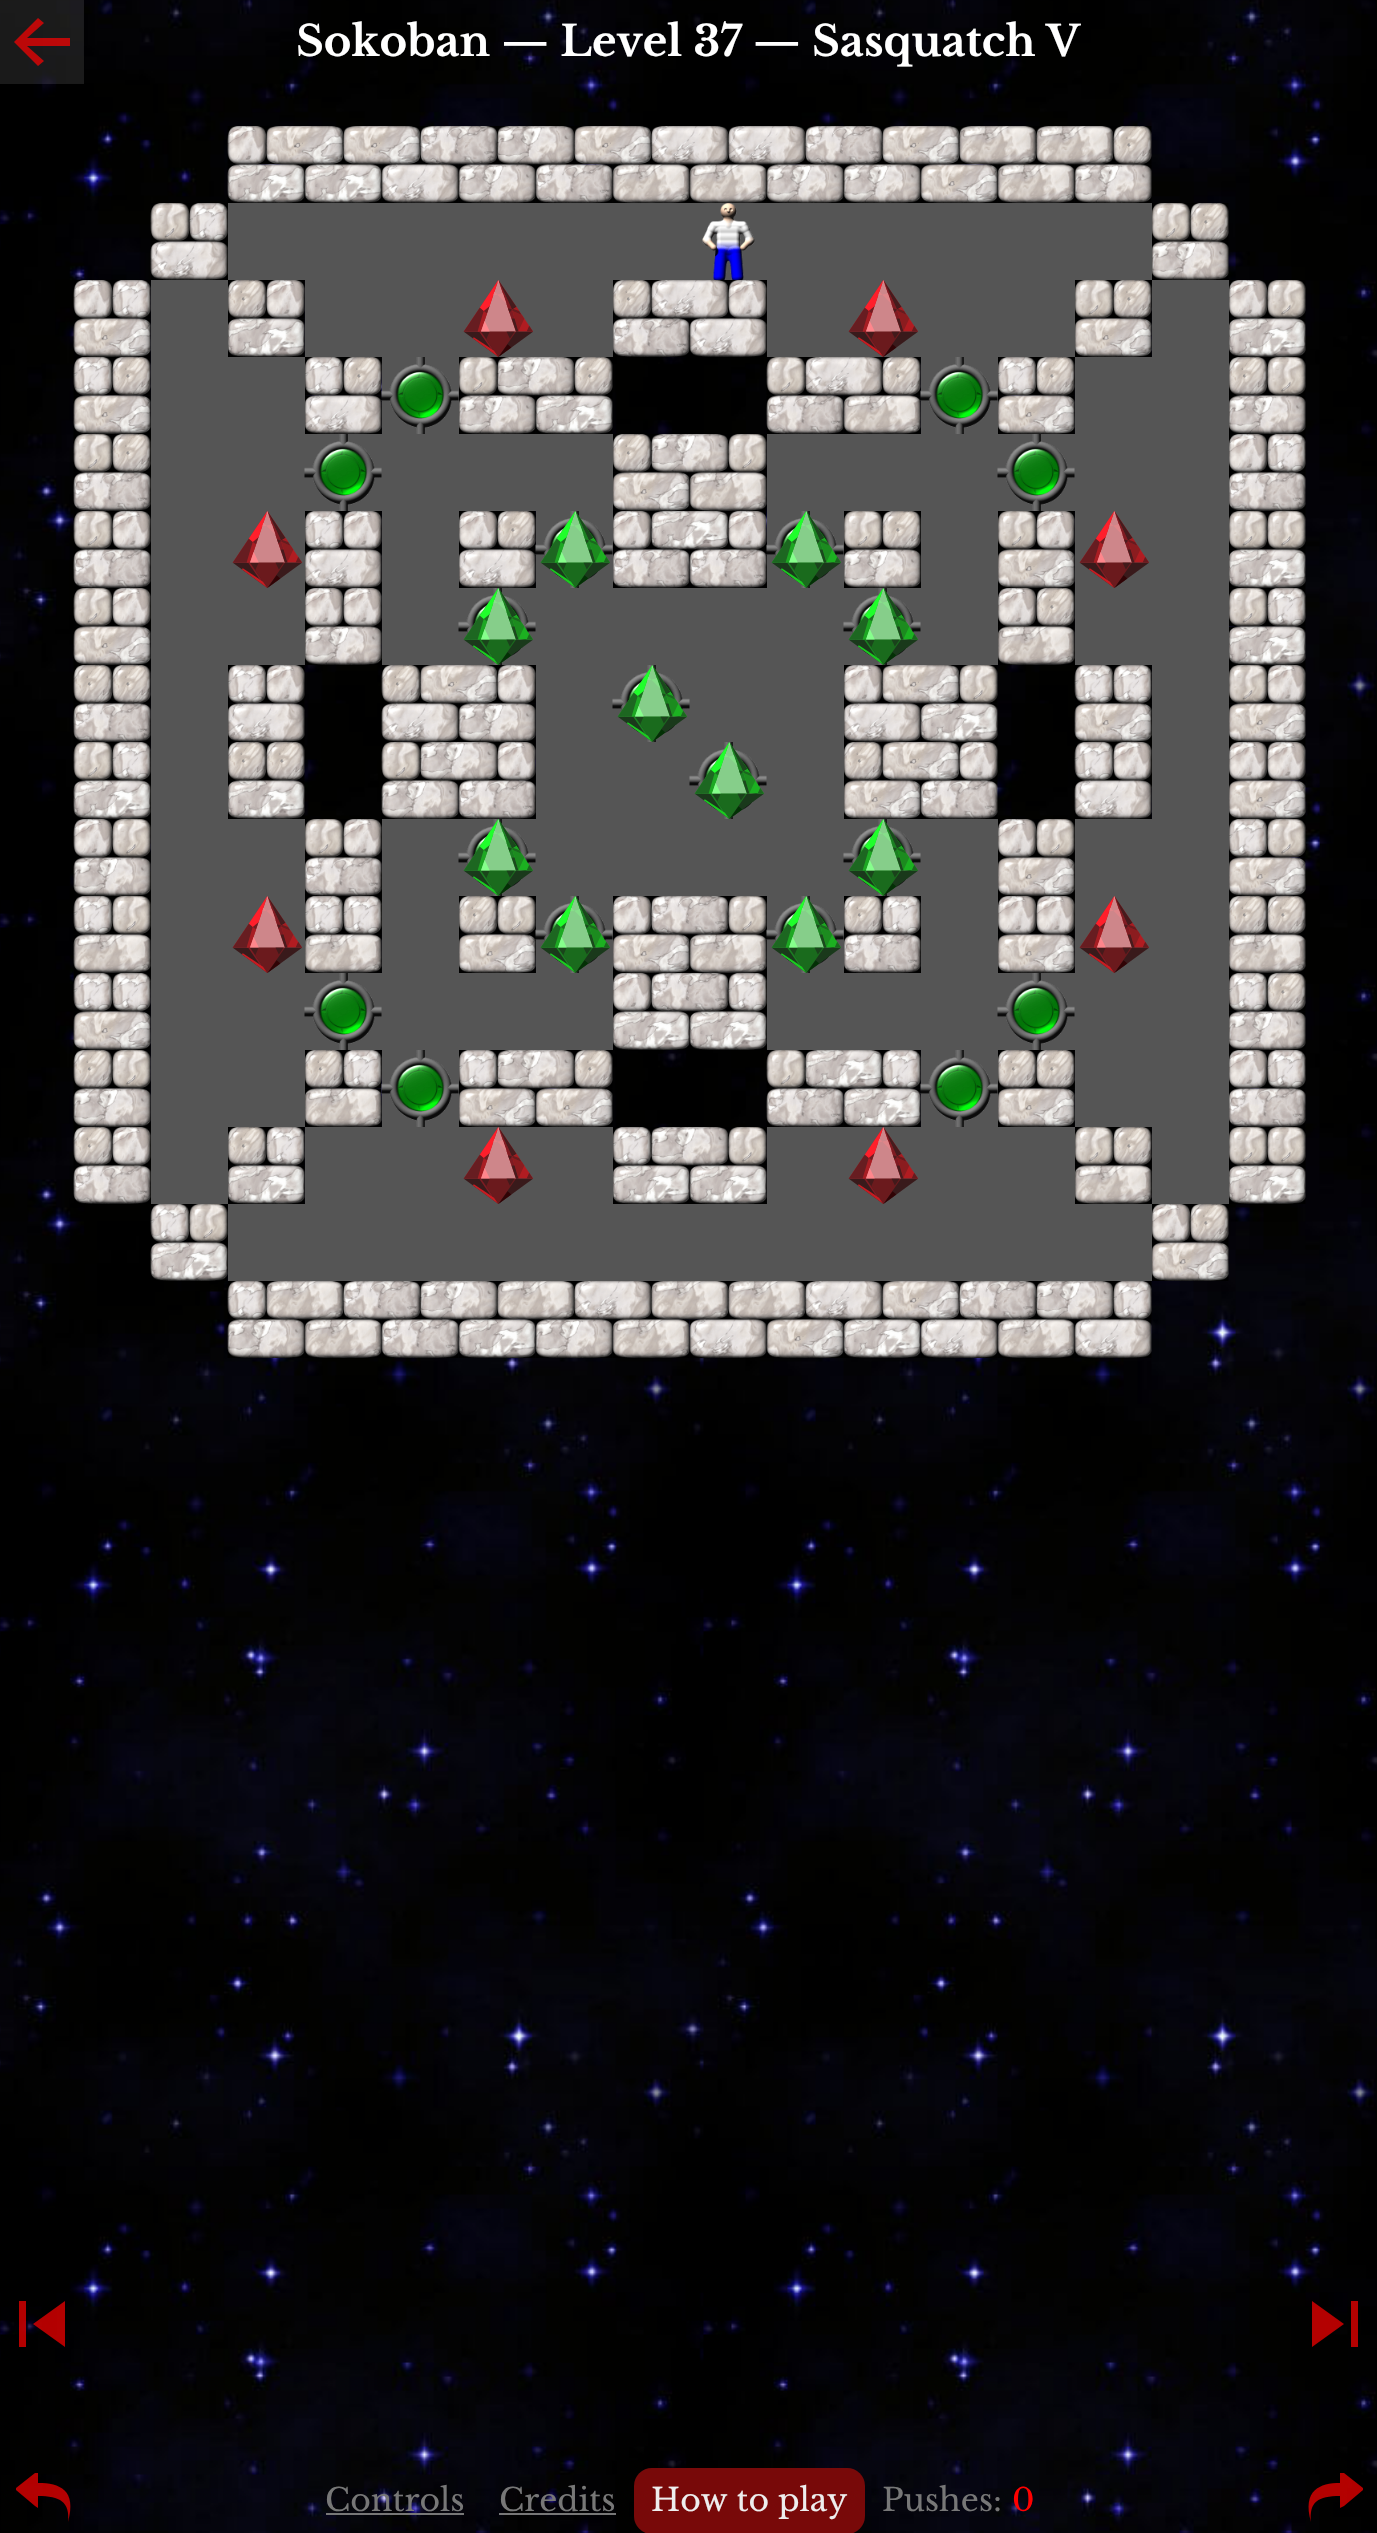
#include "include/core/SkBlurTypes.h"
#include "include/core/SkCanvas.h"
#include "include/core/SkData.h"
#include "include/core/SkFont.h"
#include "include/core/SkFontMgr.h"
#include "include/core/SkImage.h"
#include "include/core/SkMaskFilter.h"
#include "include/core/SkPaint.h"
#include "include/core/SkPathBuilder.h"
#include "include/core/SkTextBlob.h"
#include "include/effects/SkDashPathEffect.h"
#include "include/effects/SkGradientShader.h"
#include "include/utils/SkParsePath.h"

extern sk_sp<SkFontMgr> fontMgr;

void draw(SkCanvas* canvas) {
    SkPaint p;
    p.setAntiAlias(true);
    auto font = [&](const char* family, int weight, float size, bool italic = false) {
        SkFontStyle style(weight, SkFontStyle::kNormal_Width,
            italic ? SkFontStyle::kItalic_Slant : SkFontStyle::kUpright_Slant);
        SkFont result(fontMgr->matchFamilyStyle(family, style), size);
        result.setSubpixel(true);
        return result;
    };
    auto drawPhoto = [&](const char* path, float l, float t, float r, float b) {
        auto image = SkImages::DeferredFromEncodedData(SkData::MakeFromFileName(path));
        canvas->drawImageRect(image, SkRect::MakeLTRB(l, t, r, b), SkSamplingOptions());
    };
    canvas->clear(0xFFFFFFFF);
    drawPhoto("media/1.png", 0, 0, 1377, 2533);
    p.setColor(0x1AFFFFFF);
    canvas->drawRect(SkRect::MakeLTRB(0, 0, 84, 84), p);
    p.setColor(0xB3FF0000);
    canvas->drawPath(SkPathBuilder().moveTo(38, 18).lineTo(14, 42).lineTo(38, 66).lineTo(44, 61).lineTo(27, 46).lineTo(70, 46).lineTo(70, 38).lineTo(27, 38).lineTo(44, 23).close().detach(), p);
    auto font1 = font("Libre Baskerville", 700, 42);
    p.setColor(0xFFFFFFFF);
    canvas->drawString("Sokoban — Level 37 — Sasquatch V", 296, 56, font1, p);
    drawPhoto("media/2.png", 227, 126, 266, 165);
    drawPhoto("media/3.png", 266, 126, 343, 165);
    drawPhoto("media/4.png", 343, 126, 420, 165);
    drawPhoto("media/5.png", 420, 126, 497, 165);
    drawPhoto("media/6.png", 497, 126, 574, 165);
    drawPhoto("media/7.png", 574, 126, 651, 165);
    drawPhoto("media/8.png", 651, 126, 728, 165);
    drawPhoto("media/9.png", 728, 126, 805, 165);
    drawPhoto("media/10.png", 805, 126, 882, 165);
    drawPhoto("media/11.png", 882, 126, 959, 165);
    drawPhoto("media/12.png", 959, 126, 1036, 165);
    drawPhoto("media/13.png", 1036, 126, 1113, 165);
    drawPhoto("media/14.png", 1113, 126, 1152, 165);
    drawPhoto("media/15.png", 227, 164, 305, 203);
    drawPhoto("media/16.png", 304, 164, 382, 203);
    drawPhoto("media/17.png", 381, 164, 459, 203);
    drawPhoto("media/18.png", 458, 164, 536, 203);
    drawPhoto("media/19.png", 535, 164, 613, 203);
    drawPhoto("media/20.png", 612, 164, 690, 203);
    drawPhoto("media/21.png", 689, 164, 767, 203);
    drawPhoto("media/22.png", 766, 164, 844, 203);
    drawPhoto("media/23.png", 843, 164, 921, 203);
    drawPhoto("media/24.png", 920, 164, 998, 203);
    drawPhoto("media/25.png", 997, 164, 1075, 203);
    drawPhoto("media/26.png", 1074, 164, 1152, 203);
    drawPhoto("media/27.png", 150, 203, 189, 242);
    drawPhoto("media/28.png", 189, 203, 228, 242);
    drawPhoto("media/29.png", 150, 241, 228, 280);
    p.setColor(0xFF555555);
    canvas->drawRect(SkRect::MakeLTRB(228, 203, 1152, 280), p);
    drawPhoto("media/30.png", 702, 203, 755, 280);
    drawPhoto("media/31.png", 1152, 203, 1190, 242);
    drawPhoto("media/32.png", 1190, 203, 1229, 242);
    drawPhoto("media/33.png", 1152, 241, 1229, 280);
    drawPhoto("media/34.png", 73, 280, 112, 319);
    drawPhoto("media/35.png", 112, 280, 151, 319);
    drawPhoto("media/36.png", 73, 318, 151, 357);
    canvas->drawRect(SkRect::MakeLTRB(151, 280, 228, 1204), p);
    drawPhoto("media/37.png", 228, 280, 266, 319);
    drawPhoto("media/38.png", 266, 280, 305, 319);
    drawPhoto("media/39.png", 228, 318, 305, 357);
    canvas->drawRect(SkRect::MakeLTRB(305, 280, 613, 357), p);
    drawPhoto("media/40.png", 463, 280, 533, 357);
    drawPhoto("media/41.png", 613, 280, 651, 319);
    drawPhoto("media/8.png", 651, 280, 728, 319);
    drawPhoto("media/42.png", 728, 280, 767, 319);
    drawPhoto("media/43.png", 613, 318, 690, 357);
    drawPhoto("media/44.png", 689, 318, 767, 357);
    canvas->drawRect(SkRect::MakeLTRB(767, 280, 1075, 357), p);
    drawPhoto("media/40.png", 848, 280, 918, 357);
    drawPhoto("media/45.png", 1075, 280, 1113, 319);
    drawPhoto("media/46.png", 1113, 280, 1152, 319);
    drawPhoto("media/47.png", 1075, 318, 1152, 357);
    canvas->drawRect(SkRect::MakeLTRB(1152, 280, 1229, 357), p);
    drawPhoto("media/48.png", 1229, 280, 1267, 319);
    drawPhoto("media/49.png", 1267, 280, 1306, 319);
    drawPhoto("media/50.png", 1229, 318, 1306, 357);
    drawPhoto("media/51.png", 73, 357, 112, 396);
    drawPhoto("media/52.png", 112, 357, 151, 396);
    drawPhoto("media/53.png", 73, 395, 151, 434);
    canvas->drawRect(SkRect::MakeLTRB(228, 357, 305, 665), p);
    drawPhoto("media/54.png", 305, 357, 343, 396);
    drawPhoto("media/55.png", 343, 357, 382, 396);
    drawPhoto("media/56.png", 305, 395, 382, 434);
    canvas->drawRect(SkRect::MakeLTRB(382, 357, 459, 434), p);
    drawPhoto("media/57.png", 381, 357, 459, 434);
    drawPhoto("media/58.png", 459, 357, 497, 396);
    drawPhoto("media/59.png", 497, 357, 574, 396);
    drawPhoto("media/60.png", 574, 357, 613, 396);
    drawPhoto("media/61.png", 459, 395, 536, 434);
    drawPhoto("media/62.png", 535, 395, 613, 434);
    drawPhoto("media/63.png", 766, 357, 805, 396);
    drawPhoto("media/64.png", 805, 357, 882, 396);
    drawPhoto("media/65.png", 882, 357, 921, 396);
    drawPhoto("media/66.png", 766, 395, 844, 434);
    drawPhoto("media/67.png", 843, 395, 921, 434);
    canvas->drawRect(SkRect::MakeLTRB(921, 357, 998, 434), p);
    drawPhoto("media/68.png", 920, 357, 998, 434);
    drawPhoto("media/69.png", 998, 357, 1036, 396);
    drawPhoto("media/70.png", 1036, 357, 1075, 396);
    drawPhoto("media/71.png", 998, 395, 1075, 434);
    canvas->drawRect(SkRect::MakeLTRB(1075, 357, 1229, 434), p);
    drawPhoto("media/72.png", 1229, 357, 1267, 396);
    drawPhoto("media/73.png", 1267, 357, 1306, 396);
    drawPhoto("media/74.png", 1229, 395, 1306, 434);
    drawPhoto("media/75.png", 73, 434, 112, 473);
    drawPhoto("media/76.png", 112, 434, 151, 473);
    drawPhoto("media/77.png", 73, 472, 151, 511);
    canvas->drawRect(SkRect::MakeLTRB(305, 434, 613, 511), p);
    drawPhoto("media/78.png", 304, 434, 382, 511);
    drawPhoto("media/79.png", 613, 434, 651, 473);
    drawPhoto("media/80.png", 651, 434, 728, 473);
    drawPhoto("media/81.png", 728, 434, 767, 473);
    drawPhoto("media/82.png", 613, 472, 690, 511);
    drawPhoto("media/83.png", 689, 472, 767, 511);
    canvas->drawRect(SkRect::MakeLTRB(767, 434, 1229, 511), p);
    drawPhoto("media/78.png", 997, 434, 1075, 511);
    drawPhoto("media/84.png", 1229, 434, 1267, 473);
    drawPhoto("media/85.png", 1267, 434, 1306, 473);
    drawPhoto("media/86.png", 1229, 472, 1306, 511);
    drawPhoto("media/87.png", 73, 511, 112, 550);
    drawPhoto("media/88.png", 112, 511, 151, 550);
    drawPhoto("media/89.png", 73, 549, 151, 588);
    drawPhoto("media/40.png", 232, 511, 302, 588);
    drawPhoto("media/90.png", 305, 511, 343, 550);
    drawPhoto("media/91.png", 343, 511, 382, 550);
    drawPhoto("media/92.png", 305, 549, 382, 588);
    canvas->drawRect(SkRect::MakeLTRB(382, 511, 459, 665), p);
    drawPhoto("media/93.png", 459, 511, 497, 550);
    drawPhoto("media/94.png", 497, 511, 536, 550);
    drawPhoto("media/95.png", 459, 549, 536, 588);
    canvas->drawRect(SkRect::MakeLTRB(536, 511, 613, 588), p);
    drawPhoto("media/96.png", 535, 511, 613, 588);
    drawPhoto("media/97.png", 540, 511, 610, 588);
    drawPhoto("media/98.png", 613, 511, 651, 550);
    drawPhoto("media/99.png", 651, 511, 728, 550);
    drawPhoto("media/100.png", 728, 511, 767, 550);
    drawPhoto("media/101.png", 613, 549, 690, 588);
    drawPhoto("media/102.png", 689, 549, 767, 588);
    canvas->drawRect(SkRect::MakeLTRB(767, 511, 844, 588), p);
    drawPhoto("media/103.png", 766, 511, 844, 588);
    drawPhoto("media/97.png", 771, 511, 841, 588);
    drawPhoto("media/104.png", 844, 511, 882, 550);
    drawPhoto("media/105.png", 882, 511, 921, 550);
    drawPhoto("media/106.png", 844, 549, 921, 588);
    canvas->drawRect(SkRect::MakeLTRB(921, 511, 998, 588), p);
    drawPhoto("media/107.png", 998, 511, 1036, 550);
    drawPhoto("media/108.png", 1036, 511, 1075, 550);
    drawPhoto("media/109.png", 998, 549, 1075, 588);
    canvas->drawRect(SkRect::MakeLTRB(1075, 511, 1229, 588), p);
    drawPhoto("media/40.png", 1079, 511, 1149, 588);
    drawPhoto("media/110.png", 1229, 511, 1267, 550);
    drawPhoto("media/111.png", 1267, 511, 1306, 550);
    drawPhoto("media/112.png", 1229, 549, 1306, 588);
    drawPhoto("media/113.png", 73, 588, 112, 627);
    drawPhoto("media/114.png", 112, 588, 151, 627);
    drawPhoto("media/115.png", 73, 626, 151, 665);
    drawPhoto("media/116.png", 305, 588, 343, 627);
    drawPhoto("media/117.png", 343, 588, 382, 627);
    drawPhoto("media/118.png", 305, 626, 382, 665);
    canvas->drawRect(SkRect::MakeLTRB(459, 588, 998, 665), p);
    drawPhoto("media/119.png", 458, 588, 536, 665);
    drawPhoto("media/97.png", 463, 588, 533, 665);
    drawPhoto("media/119.png", 843, 588, 921, 665);
    drawPhoto("media/97.png", 848, 588, 918, 665);
    drawPhoto("media/120.png", 998, 588, 1036, 627);
    drawPhoto("media/121.png", 1036, 588, 1075, 627);
    drawPhoto("media/122.png", 998, 626, 1075, 665);
    canvas->drawRect(SkRect::MakeLTRB(1075, 588, 1229, 665), p);
    drawPhoto("media/123.png", 1229, 588, 1267, 627);
    drawPhoto("media/124.png", 1267, 588, 1306, 627);
    drawPhoto("media/125.png", 1229, 626, 1306, 665);
    drawPhoto("media/126.png", 73, 665, 112, 704);
    drawPhoto("media/127.png", 112, 665, 151, 704);
    drawPhoto("media/128.png", 73, 703, 151, 742);
    drawPhoto("media/129.png", 228, 665, 266, 704);
    drawPhoto("media/130.png", 266, 665, 305, 704);
    drawPhoto("media/131.png", 228, 703, 305, 742);
    drawPhoto("media/132.png", 381, 665, 420, 704);
    drawPhoto("media/133.png", 420, 665, 497, 704);
    drawPhoto("media/134.png", 497, 665, 536, 704);
    drawPhoto("media/135.png", 381, 703, 459, 742);
    drawPhoto("media/136.png", 458, 703, 536, 742);
    canvas->drawRect(SkRect::MakeLTRB(536, 665, 844, 742), p);
    drawPhoto("media/78.png", 612, 665, 690, 742);
    drawPhoto("media/137.png", 617, 665, 687, 742);
    drawPhoto("media/138.png", 844, 665, 882, 704);
    drawPhoto("media/139.png", 882, 665, 959, 704);
    drawPhoto("media/140.png", 959, 665, 998, 704);
    drawPhoto("media/141.png", 844, 703, 921, 742);
    drawPhoto("media/142.png", 920, 703, 998, 742);
    drawPhoto("media/143.png", 1074, 665, 1113, 704);
    drawPhoto("media/144.png", 1113, 665, 1152, 704);
    drawPhoto("media/145.png", 1074, 703, 1152, 742);
    canvas->drawRect(SkRect::MakeLTRB(1152, 665, 1229, 819), p);
    drawPhoto("media/146.png", 1229, 665, 1267, 704);
    drawPhoto("media/147.png", 1267, 665, 1306, 704);
    drawPhoto("media/148.png", 1229, 703, 1306, 742);
    drawPhoto("media/149.png", 73, 742, 112, 781);
    drawPhoto("media/150.png", 112, 742, 151, 781);
    drawPhoto("media/151.png", 73, 780, 151, 819);
    drawPhoto("media/152.png", 228, 742, 266, 781);
    drawPhoto("media/153.png", 266, 742, 305, 781);
    drawPhoto("media/154.png", 228, 780, 305, 819);
    drawPhoto("media/155.png", 381, 742, 420, 781);
    drawPhoto("media/156.png", 420, 742, 497, 781);
    drawPhoto("media/157.png", 497, 742, 536, 781);
    drawPhoto("media/158.png", 381, 780, 459, 819);
    drawPhoto("media/159.png", 458, 780, 536, 819);
    canvas->drawRect(SkRect::MakeLTRB(536, 742, 844, 819), p);
    drawPhoto("media/78.png", 689, 742, 767, 819);
    drawPhoto("media/137.png", 694, 742, 764, 819);
    drawPhoto("media/160.png", 844, 742, 882, 781);
    drawPhoto("media/161.png", 882, 742, 959, 781);
    drawPhoto("media/162.png", 959, 742, 998, 781);
    drawPhoto("media/163.png", 844, 780, 921, 819);
    drawPhoto("media/164.png", 920, 780, 998, 819);
    drawPhoto("media/165.png", 1074, 742, 1113, 781);
    drawPhoto("media/166.png", 1113, 742, 1152, 781);
    drawPhoto("media/167.png", 1074, 780, 1152, 819);
    drawPhoto("media/168.png", 1229, 742, 1267, 781);
    drawPhoto("media/169.png", 1267, 742, 1306, 781);
    drawPhoto("media/170.png", 1229, 780, 1306, 819);
    drawPhoto("media/171.png", 73, 819, 112, 858);
    drawPhoto("media/172.png", 112, 819, 151, 858);
    drawPhoto("media/173.png", 73, 857, 151, 896);
    canvas->drawRect(SkRect::MakeLTRB(228, 819, 305, 1127), p);
    drawPhoto("media/174.png", 305, 819, 343, 858);
    drawPhoto("media/175.png", 343, 819, 382, 858);
    drawPhoto("media/176.png", 305, 857, 382, 896);
    canvas->drawRect(SkRect::MakeLTRB(382, 819, 998, 896), p);
    drawPhoto("media/78.png", 458, 819, 536, 896);
    drawPhoto("media/137.png", 463, 819, 533, 896);
    drawPhoto("media/78.png", 843, 819, 921, 896);
    drawPhoto("media/137.png", 848, 819, 918, 896);
    drawPhoto("media/177.png", 998, 819, 1036, 858);
    drawPhoto("media/178.png", 1036, 819, 1075, 858);
    drawPhoto("media/179.png", 998, 857, 1075, 896);
    canvas->drawRect(SkRect::MakeLTRB(1075, 819, 1229, 896), p);
    drawPhoto("media/180.png", 1229, 819, 1267, 858);
    drawPhoto("media/181.png", 1267, 819, 1306, 858);
    drawPhoto("media/182.png", 1229, 857, 1306, 896);
    drawPhoto("media/183.png", 73, 896, 112, 935);
    drawPhoto("media/184.png", 112, 896, 151, 935);
    drawPhoto("media/185.png", 73, 934, 151, 973);
    drawPhoto("media/40.png", 232, 896, 302, 973);
    drawPhoto("media/186.png", 305, 896, 343, 935);
    drawPhoto("media/187.png", 343, 896, 382, 935);
    drawPhoto("media/188.png", 305, 934, 382, 973);
    canvas->drawRect(SkRect::MakeLTRB(382, 896, 459, 973), p);
    drawPhoto("media/189.png", 459, 896, 497, 935);
    drawPhoto("media/190.png", 497, 896, 536, 935);
    drawPhoto("media/191.png", 459, 934, 536, 973);
    canvas->drawRect(SkRect::MakeLTRB(536, 896, 613, 973), p);
    drawPhoto("media/192.png", 535, 896, 613, 973);
    drawPhoto("media/137.png", 540, 896, 610, 973);
    drawPhoto("media/193.png", 613, 896, 651, 935);
    drawPhoto("media/194.png", 651, 896, 728, 935);
    drawPhoto("media/195.png", 728, 896, 767, 935);
    drawPhoto("media/196.png", 613, 934, 690, 973);
    drawPhoto("media/197.png", 689, 934, 767, 973);
    canvas->drawRect(SkRect::MakeLTRB(767, 896, 844, 1050), p);
    drawPhoto("media/198.png", 766, 896, 844, 973);
    drawPhoto("media/137.png", 771, 896, 841, 973);
    drawPhoto("media/199.png", 844, 896, 882, 935);
    drawPhoto("media/200.png", 882, 896, 921, 935);
    drawPhoto("media/201.png", 844, 934, 921, 973);
    canvas->drawRect(SkRect::MakeLTRB(921, 896, 998, 973), p);
    drawPhoto("media/202.png", 998, 896, 1036, 935);
    drawPhoto("media/203.png", 1036, 896, 1075, 935);
    drawPhoto("media/204.png", 998, 934, 1075, 973);
    canvas->drawRect(SkRect::MakeLTRB(1075, 896, 1229, 973), p);
    drawPhoto("media/40.png", 1079, 896, 1149, 973);
    drawPhoto("media/205.png", 1229, 896, 1267, 935);
    drawPhoto("media/206.png", 1267, 896, 1306, 935);
    drawPhoto("media/207.png", 1229, 934, 1306, 973);
    drawPhoto("media/208.png", 73, 973, 112, 1012);
    drawPhoto("media/209.png", 112, 973, 151, 1012);
    drawPhoto("media/210.png", 73, 1011, 151, 1050);
    canvas->drawRect(SkRect::MakeLTRB(305, 973, 613, 1050), p);
    drawPhoto("media/78.png", 304, 973, 382, 1050);
    drawPhoto("media/211.png", 613, 973, 651, 1012);
    drawPhoto("media/212.png", 651, 973, 728, 1012);
    drawPhoto("media/213.png", 728, 973, 767, 1012);
    drawPhoto("media/214.png", 613, 1011, 690, 1050);
    drawPhoto("media/215.png", 689, 1011, 767, 1050);
    canvas->drawRect(SkRect::MakeLTRB(844, 973, 1229, 1050), p);
    drawPhoto("media/78.png", 997, 973, 1075, 1050);
    drawPhoto("media/216.png", 1229, 973, 1267, 1012);
    drawPhoto("media/217.png", 1267, 973, 1306, 1012);
    drawPhoto("media/218.png", 1229, 1011, 1306, 1050);
    drawPhoto("media/219.png", 73, 1050, 112, 1089);
    drawPhoto("media/220.png", 112, 1050, 151, 1089);
    drawPhoto("media/221.png", 73, 1088, 151, 1127);
    drawPhoto("media/222.png", 305, 1050, 343, 1089);
    drawPhoto("media/223.png", 343, 1050, 382, 1089);
    drawPhoto("media/224.png", 305, 1088, 382, 1127);
    canvas->drawRect(SkRect::MakeLTRB(382, 1050, 459, 1127), p);
    drawPhoto("media/225.png", 381, 1050, 459, 1127);
    drawPhoto("media/226.png", 459, 1050, 497, 1089);
    drawPhoto("media/227.png", 497, 1050, 574, 1089);
    drawPhoto("media/228.png", 574, 1050, 613, 1089);
    drawPhoto("media/229.png", 459, 1088, 536, 1127);
    drawPhoto("media/230.png", 535, 1088, 613, 1127);
    drawPhoto("media/231.png", 766, 1050, 805, 1089);
    drawPhoto("media/232.png", 805, 1050, 882, 1089);
    drawPhoto("media/233.png", 882, 1050, 921, 1089);
    drawPhoto("media/234.png", 766, 1088, 844, 1127);
    drawPhoto("media/235.png", 843, 1088, 921, 1127);
    canvas->drawRect(SkRect::MakeLTRB(921, 1050, 998, 1127), p);
    drawPhoto("media/236.png", 920, 1050, 998, 1127);
    drawPhoto("media/237.png", 998, 1050, 1036, 1089);
    drawPhoto("media/238.png", 1036, 1050, 1075, 1089);
    drawPhoto("media/239.png", 998, 1088, 1075, 1127);
    canvas->drawRect(SkRect::MakeLTRB(1075, 1050, 1229, 1127), p);
    drawPhoto("media/240.png", 1229, 1050, 1267, 1089);
    drawPhoto("media/241.png", 1267, 1050, 1306, 1089);
    drawPhoto("media/242.png", 1229, 1088, 1306, 1127);
    drawPhoto("media/243.png", 73, 1127, 112, 1166);
    drawPhoto("media/244.png", 112, 1127, 151, 1166);
    drawPhoto("media/245.png", 73, 1165, 151, 1204);
    drawPhoto("media/246.png", 228, 1127, 266, 1166);
    drawPhoto("media/247.png", 266, 1127, 305, 1166);
    drawPhoto("media/248.png", 228, 1165, 305, 1204);
    canvas->drawRect(SkRect::MakeLTRB(305, 1127, 613, 1204), p);
    drawPhoto("media/40.png", 463, 1127, 533, 1204);
    drawPhoto("media/249.png", 613, 1127, 651, 1166);
    drawPhoto("media/250.png", 651, 1127, 728, 1166);
    drawPhoto("media/251.png", 728, 1127, 767, 1166);
    drawPhoto("media/252.png", 613, 1165, 690, 1204);
    drawPhoto("media/253.png", 689, 1165, 767, 1204);
    canvas->drawRect(SkRect::MakeLTRB(767, 1127, 1075, 1204), p);
    drawPhoto("media/40.png", 848, 1127, 918, 1204);
    drawPhoto("media/254.png", 1075, 1127, 1113, 1166);
    drawPhoto("media/255.png", 1113, 1127, 1152, 1166);
    drawPhoto("media/256.png", 1075, 1165, 1152, 1204);
    canvas->drawRect(SkRect::MakeLTRB(1152, 1127, 1229, 1204), p);
    drawPhoto("media/257.png", 1229, 1127, 1267, 1166);
    drawPhoto("media/258.png", 1267, 1127, 1306, 1166);
    drawPhoto("media/259.png", 1229, 1165, 1306, 1204);
    drawPhoto("media/260.png", 150, 1204, 189, 1243);
    drawPhoto("media/261.png", 189, 1204, 228, 1243);
    drawPhoto("media/262.png", 150, 1242, 228, 1281);
    canvas->drawRect(SkRect::MakeLTRB(228, 1204, 1152, 1281), p);
    drawPhoto("media/263.png", 1152, 1204, 1190, 1243);
    drawPhoto("media/264.png", 1190, 1204, 1229, 1243);
    drawPhoto("media/265.png", 1152, 1242, 1229, 1281);
    drawPhoto("media/266.png", 227, 1281, 266, 1320);
    drawPhoto("media/267.png", 266, 1281, 343, 1320);
    drawPhoto("media/268.png", 343, 1281, 420, 1320);
    drawPhoto("media/269.png", 420, 1281, 497, 1320);
    drawPhoto("media/270.png", 497, 1281, 574, 1320);
    drawPhoto("media/271.png", 574, 1281, 651, 1320);
    drawPhoto("media/272.png", 651, 1281, 728, 1320);
    drawPhoto("media/273.png", 728, 1281, 805, 1320);
    drawPhoto("media/274.png", 805, 1281, 882, 1320);
    drawPhoto("media/275.png", 882, 1281, 959, 1320);
    drawPhoto("media/276.png", 959, 1281, 1036, 1320);
    drawPhoto("media/277.png", 1036, 1281, 1113, 1320);
    drawPhoto("media/278.png", 1113, 1281, 1152, 1320);
    drawPhoto("media/279.png", 227, 1319, 305, 1358);
    drawPhoto("media/280.png", 304, 1319, 382, 1358);
    drawPhoto("media/281.png", 381, 1319, 459, 1358);
    drawPhoto("media/282.png", 458, 1319, 536, 1358);
    drawPhoto("media/283.png", 535, 1319, 613, 1358);
    drawPhoto("media/284.png", 612, 1319, 690, 1358);
    drawPhoto("media/285.png", 689, 1319, 767, 1358);
    drawPhoto("media/286.png", 766, 1319, 844, 1358);
    drawPhoto("media/287.png", 843, 1319, 921, 1358);
    drawPhoto("media/288.png", 920, 1319, 998, 1358);
    drawPhoto("media/289.png", 997, 1319, 1075, 1358);
    drawPhoto("media/290.png", 1074, 1319, 1152, 1358);
    p.setColor(0xB3FF0000);
    canvas->drawPath(SkPathBuilder().moveTo(65, 2347).lineTo(33, 2324).lineTo(65, 2301).close().moveTo(26, 2301).lineTo(26, 2347).lineTo(19, 2347).lineTo(19, 2301).close().detach(), p);
    canvas->drawPath(SkPathBuilder().moveTo(1312, 2347).lineTo(1344, 2324).lineTo(1312, 2301).close().moveTo(1351, 2301).lineTo(1351, 2347).lineTo(1358, 2347).lineTo(1358, 2301).close().detach(), p);
    canvas->drawPath(SkPathBuilder().moveTo(37, 2473).lineTo(35, 2473).lineTo(16, 2488).lineTo(16, 2490).lineTo(35, 2506).lineTo(38, 2508).lineTo(38, 2496).cubicTo(60, 2496, 70, 2502, 68, 2522).cubicTo(77, 2490, 60, 2483, 38, 2483).lineTo(38, 2473).close().detach(), p);
    canvas->drawPath(SkPathBuilder().moveTo(1340, 2473).lineTo(1344, 2473).lineTo(1363, 2488).lineTo(1363, 2490).lineTo(1344, 2506).lineTo(1340, 2508).lineTo(1340, 2496).cubicTo(1318, 2496, 1309, 2502, 1311, 2522).cubicTo(1302, 2490, 1320, 2483, 1340, 2483).close().detach(), p);
    auto font2 = font("Libre Baskerville", 400, 31.5f);
    p.setColor(0xFF777777);
    canvas->drawString("Controls", 325, 2511, font2, p);
    canvas->drawRect(SkRect::MakeLTRB(326, 2513, 464, 2515), p);
    canvas->drawString("Credits", 499, 2511, font2, p);
    canvas->drawRect(SkRect::MakeLTRB(499, 2513, 616, 2515), p);
    p.setColor(0xFF780909);
    canvas->drawRoundRect(SkRect::MakeLTRB(634, 2468, 865, 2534), 18, 18, p);
    p.setColor(0xFFEEEEEE);
    canvas->drawString("How to play", 651, 2511, font2, p);
    p.setColor(0xFF777777);
    canvas->drawString("Pushes:", 882, 2511, font2, p);
    p.setColor(0xFFFF0000);
    canvas->drawString("0", 1012, 2511, font2, p);
}
